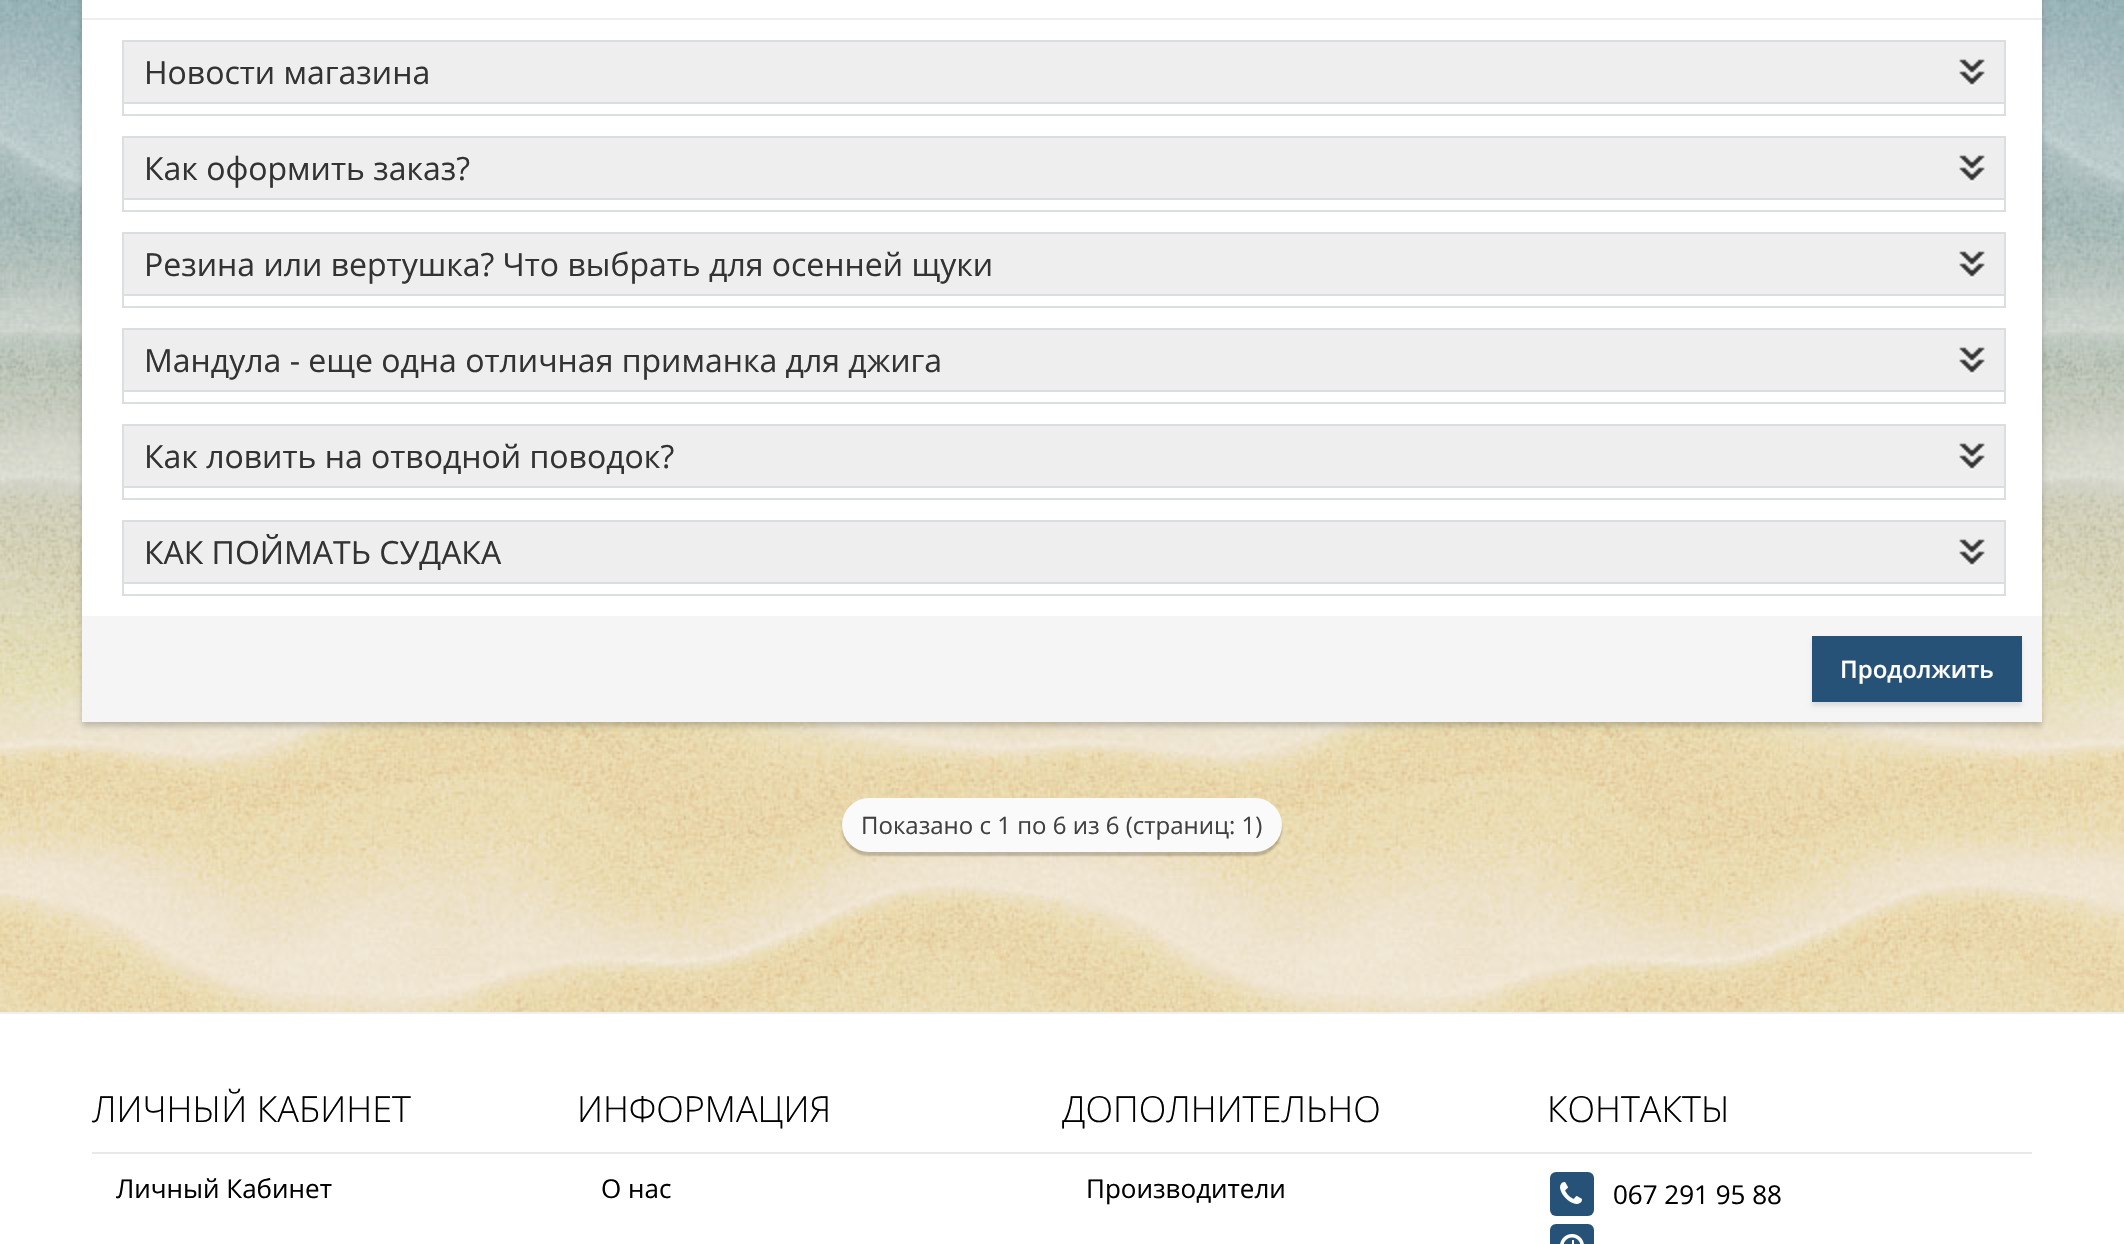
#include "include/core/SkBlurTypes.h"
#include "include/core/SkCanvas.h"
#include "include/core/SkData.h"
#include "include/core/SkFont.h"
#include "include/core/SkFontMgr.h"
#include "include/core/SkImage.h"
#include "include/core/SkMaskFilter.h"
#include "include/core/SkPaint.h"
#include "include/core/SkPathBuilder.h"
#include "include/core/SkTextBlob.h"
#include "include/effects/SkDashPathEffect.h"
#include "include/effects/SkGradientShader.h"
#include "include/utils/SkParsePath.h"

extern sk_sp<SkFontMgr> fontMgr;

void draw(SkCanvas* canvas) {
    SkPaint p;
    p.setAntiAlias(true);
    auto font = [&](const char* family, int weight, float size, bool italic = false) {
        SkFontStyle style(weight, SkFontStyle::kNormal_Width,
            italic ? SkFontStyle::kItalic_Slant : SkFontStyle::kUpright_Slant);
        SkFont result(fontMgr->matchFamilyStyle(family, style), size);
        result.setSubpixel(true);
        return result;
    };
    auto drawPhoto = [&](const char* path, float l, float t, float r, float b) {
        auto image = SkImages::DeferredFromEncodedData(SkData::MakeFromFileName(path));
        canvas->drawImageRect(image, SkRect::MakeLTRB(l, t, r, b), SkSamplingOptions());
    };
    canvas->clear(0xFFFFFFFF);
    drawPhoto("media/1.png", 0, 0, 2124, 1012);
    p.setColor(0x33000000);
    p.setMaskFilter(SkMaskFilter::MakeBlur(kNormal_SkBlurStyle, 3));
    canvas->drawRect(SkRect::MakeLTRB(82, -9, 2042, 726), p);
    p.setMaskFilter(nullptr);
    p.setColor(0xFFFFFFFF);
    canvas->drawRect(SkRect::MakeLTRB(82, 0, 2042, 616), p);
    p.setColor(0xFFEEEEEE);
    canvas->drawRect(SkRect::MakeLTRB(82, 18, 2042, 20), p);
    p.setStyle(SkPaint::kStroke_Style);
    p.setStrokeWidth(2);
    p.setColor(0xFFDBDEE1);
    canvas->drawRect(SkRect::MakeLTRB(123, 41, 2005, 115), p);
    p.setStyle(SkPaint::kFill_Style);
    p.setColor(0xFFEEEEEE);
    canvas->drawRect(SkRect::MakeLTRB(124, 42, 2004, 102), p);
    drawPhoto("media/2.png", 1959, 59, 1985, 87);
    p.setColor(0xFFDBDEE1);
    canvas->drawRect(SkRect::MakeLTRB(124, 102, 2004, 104), p);
    auto font1 = font("Open Sans", 400, 32);
    p.setColor(0xFF333333);
    canvas->drawString("Новости магазина", 144, 84, font1, p);
    p.setStyle(SkPaint::kStroke_Style);
    p.setColor(0xFFDBDEE1);
    canvas->drawRect(SkRect::MakeLTRB(123, 137, 2005, 211), p);
    p.setStyle(SkPaint::kFill_Style);
    p.setColor(0xFFEEEEEE);
    canvas->drawRect(SkRect::MakeLTRB(124, 138, 2004, 198), p);
    drawPhoto("media/2.png", 1959, 155, 1985, 183);
    p.setColor(0xFFDBDEE1);
    canvas->drawRect(SkRect::MakeLTRB(124, 198, 2004, 200), p);
    p.setColor(0xFF333333);
    canvas->drawString("Как оформить заказ?", 144, 180, font1, p);
    p.setStyle(SkPaint::kStroke_Style);
    p.setColor(0xFFDBDEE1);
    canvas->drawRect(SkRect::MakeLTRB(123, 233, 2005, 307), p);
    p.setStyle(SkPaint::kFill_Style);
    p.setColor(0xFFEEEEEE);
    canvas->drawRect(SkRect::MakeLTRB(124, 234, 2004, 294), p);
    drawPhoto("media/2.png", 1959, 251, 1985, 279);
    p.setColor(0xFFDBDEE1);
    canvas->drawRect(SkRect::MakeLTRB(124, 294, 2004, 296), p);
    p.setColor(0xFF333333);
    canvas->drawString("Резина или вертушка? Что выбрать для осенней щуки", 144, 276, font1, p);
    p.setStyle(SkPaint::kStroke_Style);
    p.setColor(0xFFDBDEE1);
    canvas->drawRect(SkRect::MakeLTRB(123, 329, 2005, 403), p);
    p.setStyle(SkPaint::kFill_Style);
    p.setColor(0xFFEEEEEE);
    canvas->drawRect(SkRect::MakeLTRB(124, 330, 2004, 390), p);
    drawPhoto("media/2.png", 1959, 347, 1985, 375);
    p.setColor(0xFFDBDEE1);
    canvas->drawRect(SkRect::MakeLTRB(124, 390, 2004, 392), p);
    p.setColor(0xFF333333);
    canvas->drawString("Мандула - еще одна отличная приманка для джига", 144, 372, font1, p);
    p.setStyle(SkPaint::kStroke_Style);
    p.setColor(0xFFDBDEE1);
    canvas->drawRect(SkRect::MakeLTRB(123, 425, 2005, 499), p);
    p.setStyle(SkPaint::kFill_Style);
    p.setColor(0xFFEEEEEE);
    canvas->drawRect(SkRect::MakeLTRB(124, 426, 2004, 486), p);
    drawPhoto("media/2.png", 1959, 443, 1985, 471);
    p.setColor(0xFFDBDEE1);
    canvas->drawRect(SkRect::MakeLTRB(124, 486, 2004, 488), p);
    p.setColor(0xFF333333);
    canvas->drawString("Как ловить на отводной поводок?", 144, 468, font1, p);
    p.setStyle(SkPaint::kStroke_Style);
    p.setColor(0xFFDBDEE1);
    canvas->drawRect(SkRect::MakeLTRB(123, 521, 2005, 595), p);
    p.setStyle(SkPaint::kFill_Style);
    p.setColor(0xFFEEEEEE);
    canvas->drawRect(SkRect::MakeLTRB(124, 522, 2004, 582), p);
    drawPhoto("media/2.png", 1959, 539, 1985, 567);
    p.setColor(0xFFDBDEE1);
    canvas->drawRect(SkRect::MakeLTRB(124, 582, 2004, 584), p);
    p.setColor(0xFF333333);
    canvas->drawString("КАК ПОЙМАТЬ СУДАКА", 144, 564, font1, p);
    p.setColor(0xFFF5F5F5);
    canvas->drawRect(SkRect::MakeLTRB(82, 616, 2042, 722), p);
    p.setColor(0xFFDDDDDD);
    p.setMaskFilter(SkMaskFilter::MakeBlur(kNormal_SkBlurStyle, 2));
    canvas->drawRect(SkRect::MakeLTRB(1812, 640, 2022, 706), p);
    p.setMaskFilter(nullptr);
    p.setColor(0xFF275278);
    canvas->drawRect(SkRect::MakeLTRB(1812, 636, 2022, 702), p);
    auto font2 = font("Open Sans", 600, 24);
    p.setColor(0xFFFFFFFF);
    canvas->drawString("Продолжить", 1840, 678, font2, p);
    p.setColor(0x33000000);
    p.setMaskFilter(SkMaskFilter::MakeBlur(kNormal_SkBlurStyle, 1));
    canvas->drawRoundRect(SkRect::MakeLTRB(842, 802, 1282, 856), 27, 27, p);
    p.setMaskFilter(nullptr);
    p.setColor(0xFFFAFAFA);
    canvas->drawRoundRect(SkRect::MakeLTRB(842, 798, 1282, 852), 27, 27, p);
    auto font3 = font("Open Sans", 400, 24);
    p.setColor(0xFF404040);
    canvas->drawString("Показано с 1 по 6 из 6 (страниц: 1)", 861, 834, font3, p);
    p.setColor(0xFFEFEFEF);
    canvas->drawRect(SkRect::MakeLTRB(0, 1012, 2124, 1014), p);
    p.setColor(0xFFE9E9E9);
    canvas->drawRect(SkRect::MakeLTRB(92, 1152, 2032, 1154), p);
    auto font4 = font("Open Sans", 300, 36);
    p.setColor(0xFF000000);
    canvas->drawString("ЛИЧНЫЙ КАБИНЕТ", 92, 1122, font4, p);
    auto font5 = font("Open Sans", 400, 26);
    canvas->drawString("Личный Кабинет", 116, 1198, font5, p);
    canvas->drawString("ИНФОРМАЦИЯ", 577, 1122, font4, p);
    canvas->drawString("О нас", 601, 1198, font5, p);
    canvas->drawString("ДОПОЛНИТЕЛЬНО", 1062, 1122, font4, p);
    canvas->drawString("Производители", 1086, 1198, font5, p);
    canvas->drawString("КОНТАКТЫ", 1547, 1122, font4, p);
    p.setColor(0xFF275278);
    canvas->drawRoundRect(SkRect::MakeLTRB(1550, 1172, 1594, 1216), 6, 6, p);
    drawPhoto("media/3.png", 1560, 1182, 1582, 1204);
    p.setColor(0xFF000000);
    canvas->drawString("067 291 95 88", 1613, 1204, font5, p);
    p.setColor(0xFF275278);
    canvas->drawRoundRect(SkRect::MakeLTRB(1550, 1224, 1594, 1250), 6, 6, p);
    drawPhoto("media/4.png", 1560, 1234, 1584, 1244);
}
